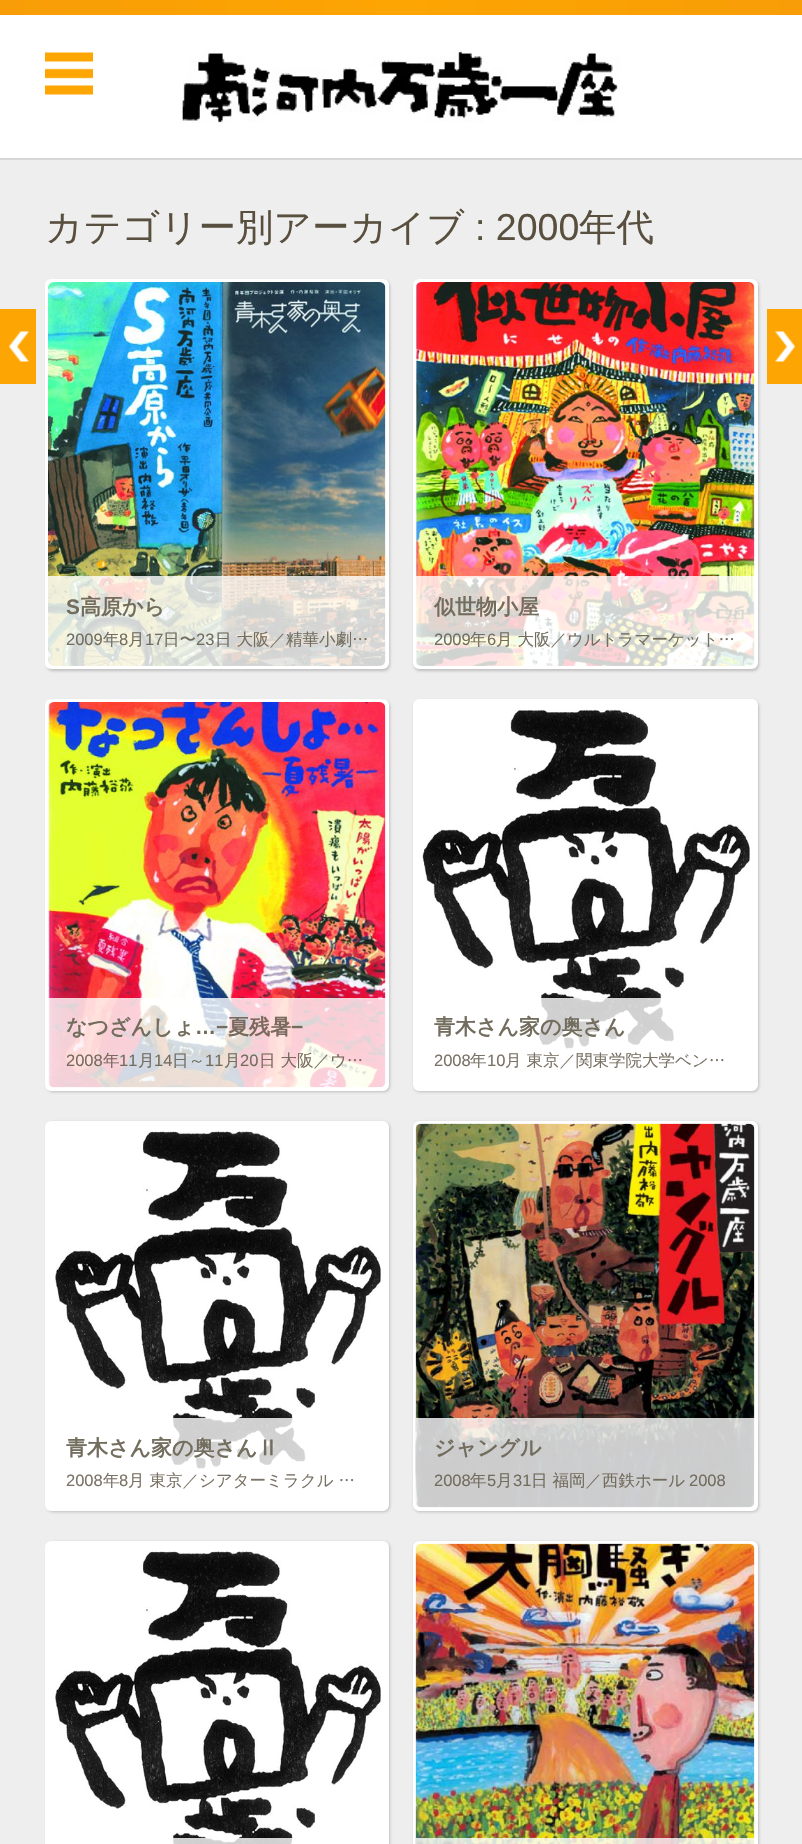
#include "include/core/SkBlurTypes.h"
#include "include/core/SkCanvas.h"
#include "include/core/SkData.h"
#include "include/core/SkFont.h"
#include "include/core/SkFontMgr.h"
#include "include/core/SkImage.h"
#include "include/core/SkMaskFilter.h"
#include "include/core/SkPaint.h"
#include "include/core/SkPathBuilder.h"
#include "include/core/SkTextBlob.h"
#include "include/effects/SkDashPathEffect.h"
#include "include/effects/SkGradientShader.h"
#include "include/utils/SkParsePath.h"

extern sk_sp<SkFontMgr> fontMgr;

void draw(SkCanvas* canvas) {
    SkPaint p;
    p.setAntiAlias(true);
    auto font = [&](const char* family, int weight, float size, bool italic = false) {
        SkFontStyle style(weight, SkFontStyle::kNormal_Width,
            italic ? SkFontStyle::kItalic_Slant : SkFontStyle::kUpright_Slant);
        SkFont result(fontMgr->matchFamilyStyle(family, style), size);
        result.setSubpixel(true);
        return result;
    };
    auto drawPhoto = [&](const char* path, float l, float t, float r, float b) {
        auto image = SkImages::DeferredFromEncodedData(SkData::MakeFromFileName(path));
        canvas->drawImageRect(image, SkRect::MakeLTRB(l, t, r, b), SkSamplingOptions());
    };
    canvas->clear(0xFFEEEEEE);
    {
        const SkColor colors[] = {0xFFF89D07, 0xFFFDA502, 0xFFF89D07};
        const float stops[] = {0, 0.5f, 1};
        const SkPoint ends[] = {{0, 80}, {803, 79}};
        p.setShader(SkGradientShader::MakeLinear(ends, colors, stops, 3, SkTileMode::kClamp));
        p.setAlpha(255);
    }
    canvas->drawRect(SkRect::MakeLTRB(0, 0, 802, 15), p);
    p.setShader(nullptr);
    p.setColor(0xFFFFFFFF);
    canvas->drawRect(SkRect::MakeLTRB(0, 15, 802, 158), p);
    p.setColor(0xFFD6D6D6);
    canvas->drawRect(SkRect::MakeLTRB(0, 158, 802, 160), p);
    drawPhoto("media/1.png", 45, 52, 93, 95);
    drawPhoto("media/2.png", 180, 51, 620, 123);
    auto font1 = font("WenQuanYi Zen Hei", 500, 37.5f);
    p.setColor(0xFF594F3E);
    canvas->drawString("カテゴリー別アーカイブ", 45, 240, font1, p);
    auto font2 = font("Liberation Sans", 400, 37.5f);
    canvas->drawString(": 2000", 475, 240, font2, p);
    canvas->drawString("年代", 579, 240, font1, p);
    p.setColor(0x33000000);
    p.setMaskFilter(SkMaskFilter::MakeBlur(kNormal_SkBlurStyle, 1.5f));
    canvas->drawRoundRect(SkRect::MakeLTRB(47, 281, 390, 671), 6, 6, p);
    p.setMaskFilter(nullptr);
    p.setColor(0xFFFFFFFF);
    canvas->drawRoundRect(SkRect::MakeLTRB(46.5f, 280.5f, 387.5f, 667.5f), 4.5f, 4.5f, p);
    p.setStyle(SkPaint::kStroke_Style);
    p.setStrokeWidth(3);
    canvas->drawRoundRect(SkRect::MakeLTRB(46.5f, 280.5f, 387.5f, 667.5f), 4.5f, 4.5f, p);
    drawPhoto("media/3.png", 48, 282, 386, 666);
    p.setStyle(SkPaint::kFill_Style);
    p.setColor(0xCCFFFFFF);
    canvas->drawPath(SkPathBuilder().moveTo(48, 576).lineTo(386, 576).lineTo(386, 663).cubicTo(386, 664.5f, 384.5f, 666, 383, 666).lineTo(51, 666).cubicTo(49.5f, 666, 48, 664.5f, 48, 663).close().detach(), p);
    auto font3 = font("Liberation Sans", 700, 21);
    p.setColor(0xFF736D5E);
    canvas->drawString("S", 66, 614, font3, p);
    auto font4 = font("WenQuanYi Zen Hei", 700, 21);
    canvas->drawString("高原から", 80, 614, font4, p);
    auto font5 = font("Liberation Sans", 400, 16.5f);
    canvas->drawString("2009", 66, 645, font5, p);
    auto font6 = font("WenQuanYi Zen Hei", 500, 16.5f);
    canvas->drawString("年", 103, 645, font6, p);
    canvas->drawString("8", 119, 645, font5, p);
    canvas->drawString("月", 128, 645, font6, p);
    canvas->drawString("17", 145, 645, font5, p);
    canvas->drawString("日〜", 163, 645, font6, p);
    canvas->drawString("23", 196, 645, font5, p);
    canvas->drawString("日 大阪／精華小劇…", 215, 645, font6, p);
    p.setColor(0x33000000);
    p.setMaskFilter(SkMaskFilter::MakeBlur(kNormal_SkBlurStyle, 1.5f));
    canvas->drawRoundRect(SkRect::MakeLTRB(414, 281, 759, 671), 6, 6, p);
    p.setMaskFilter(nullptr);
    p.setColor(0xFFFFFFFF);
    canvas->drawRoundRect(SkRect::MakeLTRB(414.5f, 280.5f, 756.5f, 667.5f), 4.5f, 4.5f, p);
    p.setStyle(SkPaint::kStroke_Style);
    canvas->drawRoundRect(SkRect::MakeLTRB(414.5f, 280.5f, 756.5f, 667.5f), 4.5f, 4.5f, p);
    drawPhoto("media/4.png", 415, 282, 755, 666);
    p.setStyle(SkPaint::kFill_Style);
    p.setColor(0xCCFFFFFF);
    canvas->drawPath(SkPathBuilder().moveTo(416, 576).lineTo(755, 576).lineTo(755, 663).cubicTo(755, 664.5f, 753.5f, 666, 752, 666).lineTo(419, 666).cubicTo(417.5f, 666, 416, 664.5f, 416, 663).close().detach(), p);
    p.setColor(0xFF736D5E);
    canvas->drawString("似世物小屋", 434, 614, font4, p);
    canvas->drawString("2009", 434, 645, font5, p);
    canvas->drawString("年", 470, 645, font6, p);
    canvas->drawString("6", 487, 645, font5, p);
    canvas->drawString("月 大阪／ウルトラマーケット…", 496, 645, font6, p);
    p.setColor(0x33000000);
    p.setMaskFilter(SkMaskFilter::MakeBlur(kNormal_SkBlurStyle, 1.5f));
    canvas->drawRoundRect(SkRect::MakeLTRB(47, 701, 390, 1092), 6, 6, p);
    p.setMaskFilter(nullptr);
    p.setColor(0xFFFFFFFF);
    canvas->drawRoundRect(SkRect::MakeLTRB(46.5f, 700.5f, 387.5f, 1089.5f), 4.5f, 4.5f, p);
    p.setStyle(SkPaint::kStroke_Style);
    canvas->drawRoundRect(SkRect::MakeLTRB(46.5f, 700.5f, 387.5f, 1089.5f), 4.5f, 4.5f, p);
    drawPhoto("media/5.png", 48, 702, 386, 1088);
    p.setStyle(SkPaint::kFill_Style);
    p.setColor(0xCCFFFFFF);
    canvas->drawPath(SkPathBuilder().moveTo(48, 998).lineTo(386, 998).lineTo(386, 1085).cubicTo(386, 1086.5f, 384.5f, 1088, 383, 1088).lineTo(51, 1088).cubicTo(49.5f, 1088, 48, 1086.5f, 48, 1085).close().detach(), p);
    p.setColor(0xFF736D5E);
    canvas->drawString("なつざんしょ", 66, 1034, font4, p);
    canvas->drawString("…−", 195, 1034, font3, p);
    p.setColor(0xFF796A5D);
    canvas->drawString("夏残暑", 228, 1034, font4, p);
    p.setColor(0xFF736D5E);
    canvas->drawString("−", 291, 1034, font3, p);
    p.setColor(0xFF796A5D);
    canvas->drawString("2008", 66, 1066, font5, p);
    canvas->drawString("年", 103, 1066, font6, p);
    p.setColor(0xFF736D5E);
    canvas->drawString("11", 119, 1066, font5, p);
    canvas->drawString("月", 138, 1066, font6, p);
    canvas->drawString("14", 154, 1066, font5, p);
    canvas->drawString("日～", 172, 1066, font6, p);
    canvas->drawString("11", 205, 1066, font5, p);
    canvas->drawString("月", 224, 1066, font6, p);
    canvas->drawString("20", 240, 1066, font5, p);
    p.setColor(0xFF796A5D);
    canvas->drawString("日 大阪／ウ…", 259, 1066, font6, p);
    p.setColor(0x33000000);
    p.setMaskFilter(SkMaskFilter::MakeBlur(kNormal_SkBlurStyle, 1.5f));
    canvas->drawRoundRect(SkRect::MakeLTRB(414, 701, 759, 1092), 6, 6, p);
    p.setMaskFilter(nullptr);
    p.setColor(0xFFFFFFFF);
    canvas->drawRoundRect(SkRect::MakeLTRB(414.5f, 700.5f, 756.5f, 1089.5f), 4.5f, 4.5f, p);
    p.setStyle(SkPaint::kStroke_Style);
    canvas->drawRoundRect(SkRect::MakeLTRB(414.5f, 700.5f, 756.5f, 1089.5f), 4.5f, 4.5f, p);
    drawPhoto("media/6.png", 422, 709, 750, 1049);
    p.setStyle(SkPaint::kFill_Style);
    p.setColor(0xCCFFFFFF);
    canvas->drawPath(SkPathBuilder().moveTo(416, 998).lineTo(755, 998).lineTo(755, 1085).cubicTo(755, 1086.5f, 753.5f, 1088, 752, 1088).lineTo(419, 1088).cubicTo(417.5f, 1088, 416, 1086.5f, 416, 1085).close().detach(), p);
    p.setColor(0xFF736D5E);
    canvas->drawString("青木さん家の奥さん", 434, 1034, font4, p);
    p.setColor(0xFF7A7265);
    canvas->drawString("2008", 434, 1066, font5, p);
    canvas->drawString("年", 470, 1066, font6, p);
    canvas->drawString("10", 487, 1066, font5, p);
    canvas->drawString("月 東京／関東学院大学ベン…", 505, 1066, font6, p);
    p.setColor(0x33000000);
    p.setMaskFilter(SkMaskFilter::MakeBlur(kNormal_SkBlurStyle, 1.5f));
    canvas->drawRoundRect(SkRect::MakeLTRB(47, 1122, 390, 1512), 6, 6, p);
    p.setMaskFilter(nullptr);
    p.setColor(0xFFFFFFFF);
    canvas->drawRoundRect(SkRect::MakeLTRB(46.5f, 1122.5f, 387.5f, 1509.5f), 4.5f, 4.5f, p);
    p.setStyle(SkPaint::kStroke_Style);
    canvas->drawRoundRect(SkRect::MakeLTRB(46.5f, 1122.5f, 387.5f, 1509.5f), 4.5f, 4.5f, p);
    drawPhoto("media/7.png", 55, 1131, 381, 1469);
    p.setStyle(SkPaint::kFill_Style);
    p.setColor(0xCCFFFFFF);
    canvas->drawPath(SkPathBuilder().moveTo(48, 1418).lineTo(386, 1418).lineTo(386, 1505).cubicTo(386, 1506.5f, 384.5f, 1508, 383, 1508).lineTo(51, 1508).cubicTo(49.5f, 1508, 48, 1506.5f, 48, 1505).close().detach(), p);
    p.setColor(0xFF736D5E);
    canvas->drawString("青木さん家の奥さんⅡ", 66, 1455, font4, p);
    p.setColor(0xFF7A7265);
    canvas->drawString("2008", 66, 1486, font5, p);
    canvas->drawString("年", 103, 1486, font6, p);
    canvas->drawString("8", 119, 1486, font5, p);
    canvas->drawString("月 東京／シアターミラクル …", 128, 1486, font6, p);
    p.setColor(0x33000000);
    p.setMaskFilter(SkMaskFilter::MakeBlur(kNormal_SkBlurStyle, 1.5f));
    canvas->drawRoundRect(SkRect::MakeLTRB(414, 1122, 759, 1512), 6, 6, p);
    p.setMaskFilter(nullptr);
    p.setColor(0xFFFFFFFF);
    canvas->drawRoundRect(SkRect::MakeLTRB(414.5f, 1122.5f, 756.5f, 1509.5f), 4.5f, 4.5f, p);
    p.setStyle(SkPaint::kStroke_Style);
    canvas->drawRoundRect(SkRect::MakeLTRB(414.5f, 1122.5f, 756.5f, 1509.5f), 4.5f, 4.5f, p);
    drawPhoto("media/8.png", 415, 1123, 755, 1508);
    p.setStyle(SkPaint::kFill_Style);
    p.setColor(0xCCFFFFFF);
    canvas->drawPath(SkPathBuilder().moveTo(416, 1418).lineTo(755, 1418).lineTo(755, 1505).cubicTo(755, 1506.5f, 753.5f, 1508, 752, 1508).lineTo(419, 1508).cubicTo(417.5f, 1508, 416, 1506.5f, 416, 1505).close().detach(), p);
    p.setColor(0xFF736D5E);
    canvas->drawString("ジャングル", 434, 1455, font4, p);
    canvas->drawString("2008", 434, 1486, font5, p);
    canvas->drawString("年", 470, 1486, font6, p);
    canvas->drawString("5", 487, 1486, font5, p);
    canvas->drawString("月", 496, 1486, font6, p);
    canvas->drawString("31", 513, 1486, font5, p);
    canvas->drawString("日 福岡／西鉄ホール", 531, 1486, font6, p);
    canvas->drawString("2008", 689, 1486, font5, p);
    p.setColor(0x33000000);
    p.setMaskFilter(SkMaskFilter::MakeBlur(kNormal_SkBlurStyle, 1.5f));
    canvas->drawRoundRect(SkRect::MakeLTRB(47, 1542, 390, 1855), 6, 6, p);
    p.setMaskFilter(nullptr);
    p.setColor(0xFFFFFFFF);
    canvas->drawRoundRect(SkRect::MakeLTRB(46.5f, 1542.5f, 387.5f, 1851.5f), 4.5f, 4.5f, p);
    p.setStyle(SkPaint::kStroke_Style);
    canvas->drawRoundRect(SkRect::MakeLTRB(46.5f, 1542.5f, 387.5f, 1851.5f), 4.5f, 4.5f, p);
    drawPhoto("media/9.png", 55, 1551, 381, 1844);
    p.setStyle(SkPaint::kFill_Style);
    p.setColor(0xCCFFFFFF);
    canvas->drawRect(SkRect::MakeLTRB(173, 1838, 293, 1844), p);
    p.setColor(0x33000000);
    p.setMaskFilter(SkMaskFilter::MakeBlur(kNormal_SkBlurStyle, 1.5f));
    canvas->drawRoundRect(SkRect::MakeLTRB(414, 1542, 759, 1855), 6, 6, p);
    p.setMaskFilter(nullptr);
    p.setColor(0xFFFFFFFF);
    canvas->drawRoundRect(SkRect::MakeLTRB(414.5f, 1542.5f, 756.5f, 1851.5f), 4.5f, 4.5f, p);
    p.setStyle(SkPaint::kStroke_Style);
    canvas->drawRoundRect(SkRect::MakeLTRB(414.5f, 1542.5f, 756.5f, 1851.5f), 4.5f, 4.5f, p);
    drawPhoto("media/10.png", 415, 1543, 755, 1844);
    p.setStyle(SkPaint::kFill_Style);
    p.setColor(0xCCFFFFFF);
    canvas->drawRect(SkRect::MakeLTRB(416, 1838, 755, 1844), p);
    p.setColor(0xFFFDA502);
    canvas->drawRect(SkRect::MakeLTRB(0, 309, 36, 384), p);
    drawPhoto("media/11.png", 9, 331, 29, 362);
    canvas->drawRect(SkRect::MakeLTRB(767, 309, 802, 384), p);
    drawPhoto("media/12.png", 775, 331, 795, 362);
}
